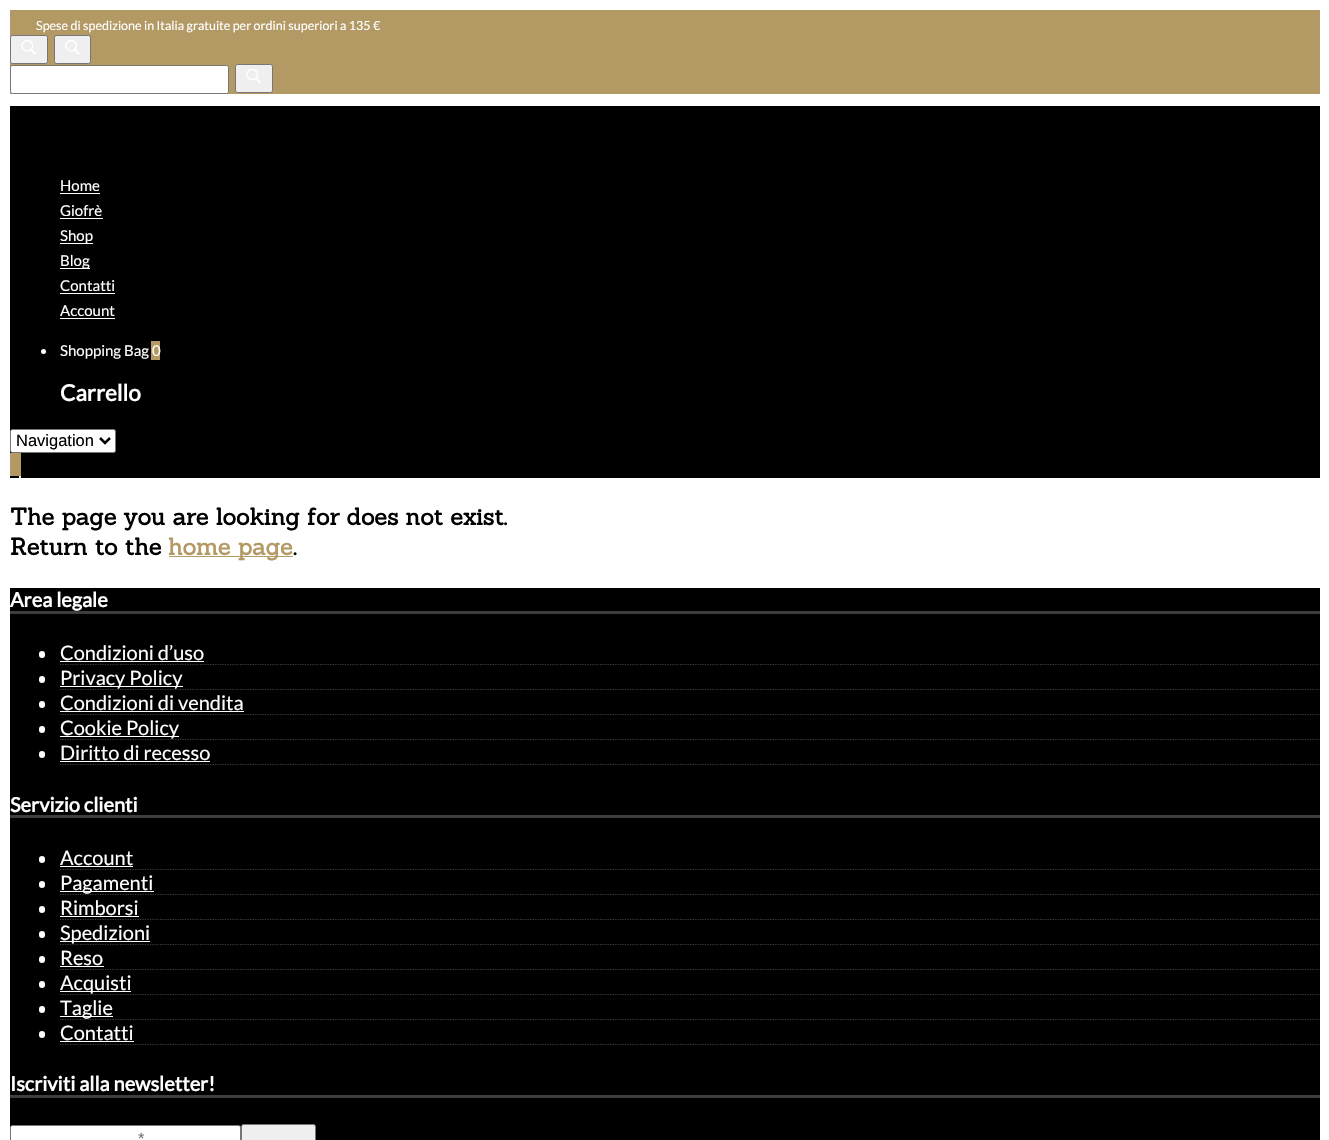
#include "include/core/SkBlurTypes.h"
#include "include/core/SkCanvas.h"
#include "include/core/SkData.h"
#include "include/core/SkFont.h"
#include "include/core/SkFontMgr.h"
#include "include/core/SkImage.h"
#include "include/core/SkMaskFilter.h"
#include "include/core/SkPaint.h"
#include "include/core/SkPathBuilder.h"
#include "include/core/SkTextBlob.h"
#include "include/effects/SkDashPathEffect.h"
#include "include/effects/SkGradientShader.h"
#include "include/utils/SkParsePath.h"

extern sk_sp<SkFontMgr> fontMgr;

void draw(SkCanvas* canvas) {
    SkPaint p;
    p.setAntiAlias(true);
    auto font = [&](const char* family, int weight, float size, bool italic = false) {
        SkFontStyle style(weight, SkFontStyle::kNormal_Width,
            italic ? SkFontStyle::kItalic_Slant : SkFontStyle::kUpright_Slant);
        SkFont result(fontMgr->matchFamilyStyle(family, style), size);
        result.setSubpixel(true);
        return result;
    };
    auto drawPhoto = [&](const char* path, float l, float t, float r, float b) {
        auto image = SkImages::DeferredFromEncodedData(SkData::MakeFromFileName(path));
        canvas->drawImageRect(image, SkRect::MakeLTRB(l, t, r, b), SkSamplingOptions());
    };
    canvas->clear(0xFFFFFFFF);
    p.setColor(0xFFB39964);
    canvas->drawRect(SkRect::MakeLTRB(10, 10, 1320, 94), p);
    auto font1 = font("Lato", 400, 12.5f);
    p.setColor(0xFFFFFFFF);
    canvas->drawString("Spese di spedizione in Italia gratuite per ordini superiori a 135 €", 36, 30, font1, p);
    p.setColor(0xFFEFEFEF);
    canvas->drawRoundRect(SkRect::MakeLTRB(10.5f, 35.5f, 47.5f, 63.5f), 2, 2, p);
    p.setStyle(SkPaint::kStroke_Style);
    p.setStrokeWidth(1);
    p.setColor(0xFF767676);
    canvas->drawRoundRect(SkRect::MakeLTRB(10.5f, 35.5f, 47.5f, 63.5f), 2, 2, p);
    drawPhoto("media/1.png", 21, 40, 36, 55);
    p.setStyle(SkPaint::kFill_Style);
    p.setColor(0xFFEFEFEF);
    canvas->drawRoundRect(SkRect::MakeLTRB(54.5f, 35.5f, 90.5f, 63.5f), 2, 2, p);
    p.setStyle(SkPaint::kStroke_Style);
    p.setColor(0xFF767676);
    canvas->drawRoundRect(SkRect::MakeLTRB(54.5f, 35.5f, 90.5f, 63.5f), 2, 2, p);
    drawPhoto("media/2.png", 65, 40, 80, 55);
    p.setStyle(SkPaint::kFill_Style);
    p.setColor(0xFFFFFFFF);
    canvas->drawRoundRect(SkRect::MakeLTRB(10.5f, 65.5f, 228.5f, 93.5f), 2, 2, p);
    p.setStyle(SkPaint::kStroke_Style);
    p.setColor(0xFF767676);
    canvas->drawRoundRect(SkRect::MakeLTRB(10.5f, 65.5f, 228.5f, 93.5f), 2, 2, p);
    p.setStyle(SkPaint::kFill_Style);
    p.setColor(0xFFEFEFEF);
    canvas->drawRoundRect(SkRect::MakeLTRB(235.5f, 64.5f, 272.5f, 92.5f), 2, 2, p);
    p.setStyle(SkPaint::kStroke_Style);
    p.setColor(0xFF767676);
    canvas->drawRoundRect(SkRect::MakeLTRB(235.5f, 64.5f, 272.5f, 92.5f), 2, 2, p);
    drawPhoto("media/3.png", 246, 69, 261, 84);
    p.setStyle(SkPaint::kFill_Style);
    p.setColor(0xFF000000);
    canvas->drawRect(SkRect::MakeLTRB(10, 106, 1320, 478), p);
    auto font2 = font("Lato", 400, 15);
    p.setColor(0xFFFFFFFF);
    canvas->drawString("Home", 60, 191, font2, p);
    canvas->drawRect(SkRect::MakeLTRB(60, 193, 100, 194), p);
    canvas->drawString("Giofrè", 60, 216, font2, p);
    canvas->drawRect(SkRect::MakeLTRB(60, 218, 103, 219), p);
    canvas->drawRect(SkRect::MakeLTRB(60, 243, 93, 244), p);
    canvas->drawString("Shop", 60, 241, font2, p);
    canvas->drawRect(SkRect::MakeLTRB(60, 268, 90, 269), p);
    canvas->drawString("Blog", 60, 266, font2, p);
    canvas->drawString("Contatti", 60, 291, font2, p);
    canvas->drawRect(SkRect::MakeLTRB(60, 293, 115, 294), p);
    canvas->drawString("Account", 60, 316, font2, p);
    canvas->drawRect(SkRect::MakeLTRB(60, 318, 115, 319), p);
    canvas->drawCircle(43.5f, 351.5f, 2.5f, p);
    canvas->drawString("Shopping Bag", 60, 356, font2, p);
    p.setColor(0xFFB39964);
    canvas->drawRect(SkRect::MakeLTRB(151, 341, 160, 360), p);
    p.setColor(0xFFFFFFFF);
    canvas->drawString("0", 152, 356, font2, p);
    auto font3 = font("Lato", 700, 22.5f);
    canvas->drawString("Carrello", 60, 401, font3, p);
    canvas->drawRoundRect(SkRect::MakeLTRB(10.5f, 429.5f, 115.5f, 452.5f), 2, 2, p);
    p.setStyle(SkPaint::kStroke_Style);
    p.setColor(0xFF767676);
    canvas->drawRoundRect(SkRect::MakeLTRB(10.5f, 429.5f, 115.5f, 452.5f), 2, 2, p);
    p.setStrokeWidth(2.5f);
    p.setColor(0xFF000000);
    canvas->drawPath(SkPathBuilder().moveTo(100, 438).lineTo(105, 443).lineTo(110, 438).detach(), p);
    auto font4 = font("Liberation Sans", 400, 16.5f);
    p.setStyle(SkPaint::kFill_Style);
    canvas->drawString("Navigation", 16, 446, font4, p);
    p.setColor(0xFFB39964);
    canvas->drawRect(SkRect::MakeLTRB(10, 453, 21, 476), p);
    drawPhoto("media/4.png", 19, 476, 21, 478);
    auto font5 = font("Sanchez", 700, 23.4f);
    p.setColor(0xFF000000);
    canvas->drawString("The page you are looking for does not exist.", 10, 525, font5, p);
    canvas->drawString("Return to the", 10, 555, font5, p);
    p.setColor(0xFFB39964);
    canvas->drawRect(SkRect::MakeLTRB(169, 556, 293, 557), p);
    canvas->drawString("home page", 168, 555, font5, p);
    p.setColor(0xFF000000);
    canvas->drawString(".", 293, 555, font5, p);
    canvas->drawRect(SkRect::MakeLTRB(10, 588, 1320, 1140), p);
    p.setColor(0xFF3D3D3D);
    canvas->drawRect(SkRect::MakeLTRB(10, 611, 1320, 614), p);
    auto font6 = font("Lato", 700, 20);
    p.setColor(0xFFFFFFFF);
    canvas->drawString("Area legale", 10, 607, font6, p);
    p.setStyle(SkPaint::kStroke_Style);
    p.setStrokeWidth(1.2f);
    p.setColor(0xFF3D3D3D);
    p.setPathEffect(SkDashPathEffect::Make({{1.25f, 1.25f}}, 0));
    canvas->drawPath(SkPathBuilder().moveTo(60, 664.5f).lineTo(1320, 664.5f).detach(), p);
    p.setPathEffect(nullptr);
    p.setStyle(SkPaint::kFill_Style);
    p.setColor(0xFFFFFFFF);
    canvas->drawRoundRect(SkRect::MakeLTRB(39, 651, 45, 658), 3, 3, p);
    auto font7 = font("Lato", 400, 20);
    canvas->drawString("Condizioni d’uso", 60, 660, font7, p);
    canvas->drawRect(SkRect::MakeLTRB(60, 661, 204, 662), p);
    p.setStyle(SkPaint::kStroke_Style);
    p.setColor(0xFF3D3D3D);
    p.setPathEffect(SkDashPathEffect::Make({{1.25f, 1.25f}}, 0));
    canvas->drawPath(SkPathBuilder().moveTo(60, 689.5f).lineTo(1320, 689.5f).detach(), p);
    p.setPathEffect(nullptr);
    p.setStyle(SkPaint::kFill_Style);
    p.setColor(0xFFFFFFFF);
    canvas->drawRoundRect(SkRect::MakeLTRB(39, 676, 45, 683), 3, 3, p);
    canvas->drawRect(SkRect::MakeLTRB(60, 686, 183, 687), p);
    canvas->drawString("Privacy Policy", 60, 685, font7, p);
    p.setStyle(SkPaint::kStroke_Style);
    p.setColor(0xFF3D3D3D);
    p.setPathEffect(SkDashPathEffect::Make({{1.25f, 1.25f}}, 0));
    canvas->drawPath(SkPathBuilder().moveTo(60, 714.5f).lineTo(1320, 714.5f).detach(), p);
    p.setPathEffect(nullptr);
    p.setStyle(SkPaint::kFill_Style);
    p.setColor(0xFFFFFFFF);
    canvas->drawRoundRect(SkRect::MakeLTRB(39, 701, 45, 708), 3, 3, p);
    canvas->drawString("Condizioni di vendita", 60, 710, font7, p);
    canvas->drawRect(SkRect::MakeLTRB(60, 711, 244, 712), p);
    p.setStyle(SkPaint::kStroke_Style);
    p.setColor(0xFF3D3D3D);
    p.setPathEffect(SkDashPathEffect::Make({{1.25f, 1.25f}}, 0));
    canvas->drawPath(SkPathBuilder().moveTo(60, 739.5f).lineTo(1320, 739.5f).detach(), p);
    p.setPathEffect(nullptr);
    p.setStyle(SkPaint::kFill_Style);
    p.setColor(0xFFFFFFFF);
    canvas->drawRoundRect(SkRect::MakeLTRB(39, 726, 45, 733), 3, 3, p);
    canvas->drawRect(SkRect::MakeLTRB(60, 736, 179, 737), p);
    canvas->drawString("Cookie Policy", 60, 735, font7, p);
    p.setStyle(SkPaint::kStroke_Style);
    p.setColor(0xFF3D3D3D);
    p.setPathEffect(SkDashPathEffect::Make({{1.25f, 1.25f}}, 0));
    canvas->drawPath(SkPathBuilder().moveTo(60, 764.5f).lineTo(1320, 764.5f).detach(), p);
    p.setPathEffect(nullptr);
    p.setStyle(SkPaint::kFill_Style);
    p.setColor(0xFFFFFFFF);
    canvas->drawRoundRect(SkRect::MakeLTRB(39, 751, 45, 758), 3, 3, p);
    canvas->drawString("Diritto di recesso", 60, 760, font7, p);
    canvas->drawRect(SkRect::MakeLTRB(60, 761, 210, 762), p);
    p.setColor(0xFF3D3D3D);
    canvas->drawRect(SkRect::MakeLTRB(10, 815, 1320, 818), p);
    p.setColor(0xFFFFFFFF);
    canvas->drawString("Servizio clienti", 10, 812, font6, p);
    p.setStyle(SkPaint::kStroke_Style);
    p.setColor(0xFF3D3D3D);
    p.setPathEffect(SkDashPathEffect::Make({{1.25f, 1.25f}}, 0));
    canvas->drawPath(SkPathBuilder().moveTo(60, 869.5f).lineTo(1320, 869.5f).detach(), p);
    p.setPathEffect(nullptr);
    p.setStyle(SkPaint::kFill_Style);
    p.setColor(0xFFFFFFFF);
    canvas->drawRoundRect(SkRect::MakeLTRB(39, 856, 45, 863), 3, 3, p);
    canvas->drawString("Account", 60, 865, font7, p);
    canvas->drawRect(SkRect::MakeLTRB(60, 866, 133, 867), p);
    p.setStyle(SkPaint::kStroke_Style);
    p.setColor(0xFF3D3D3D);
    p.setPathEffect(SkDashPathEffect::Make({{1.25f, 1.25f}}, 0));
    canvas->drawPath(SkPathBuilder().moveTo(60, 894.5f).lineTo(1320, 894.5f).detach(), p);
    p.setPathEffect(nullptr);
    p.setStyle(SkPaint::kFill_Style);
    p.setColor(0xFFFFFFFF);
    canvas->drawRoundRect(SkRect::MakeLTRB(39, 881, 45, 888), 3, 3, p);
    canvas->drawRect(SkRect::MakeLTRB(60, 891, 154, 892), p);
    canvas->drawString("Pagamenti", 60, 890, font7, p);
    p.setStyle(SkPaint::kStroke_Style);
    p.setColor(0xFF3D3D3D);
    p.setPathEffect(SkDashPathEffect::Make({{1.25f, 1.25f}}, 0));
    canvas->drawPath(SkPathBuilder().moveTo(60, 919.5f).lineTo(1320, 919.5f).detach(), p);
    p.setPathEffect(nullptr);
    p.setStyle(SkPaint::kFill_Style);
    p.setColor(0xFFFFFFFF);
    canvas->drawRoundRect(SkRect::MakeLTRB(39, 906, 45, 913), 3, 3, p);
    canvas->drawString("Rimborsi", 60, 915, font7, p);
    canvas->drawRect(SkRect::MakeLTRB(60, 916, 139, 917), p);
    p.setStyle(SkPaint::kStroke_Style);
    p.setColor(0xFF3D3D3D);
    p.setPathEffect(SkDashPathEffect::Make({{1.25f, 1.25f}}, 0));
    canvas->drawPath(SkPathBuilder().moveTo(60, 944.5f).lineTo(1320, 944.5f).detach(), p);
    p.setPathEffect(nullptr);
    p.setStyle(SkPaint::kFill_Style);
    p.setColor(0xFFFFFFFF);
    canvas->drawRoundRect(SkRect::MakeLTRB(39, 931, 45, 938), 3, 3, p);
    canvas->drawRect(SkRect::MakeLTRB(60, 941, 150, 942), p);
    canvas->drawString("Spedizioni", 60, 940, font7, p);
    p.setStyle(SkPaint::kStroke_Style);
    p.setColor(0xFF3D3D3D);
    p.setPathEffect(SkDashPathEffect::Make({{1.25f, 1.25f}}, 0));
    canvas->drawPath(SkPathBuilder().moveTo(60, 969.5f).lineTo(1320, 969.5f).detach(), p);
    p.setPathEffect(nullptr);
    p.setStyle(SkPaint::kFill_Style);
    p.setColor(0xFFFFFFFF);
    canvas->drawRoundRect(SkRect::MakeLTRB(39, 956, 45, 963), 3, 3, p);
    canvas->drawString("Reso", 60, 965, font7, p);
    canvas->drawRect(SkRect::MakeLTRB(60, 966, 104, 967), p);
    p.setStyle(SkPaint::kStroke_Style);
    p.setColor(0xFF3D3D3D);
    p.setPathEffect(SkDashPathEffect::Make({{1.25f, 1.25f}}, 0));
    canvas->drawPath(SkPathBuilder().moveTo(60, 994.5f).lineTo(1320, 994.5f).detach(), p);
    p.setPathEffect(nullptr);
    p.setStyle(SkPaint::kFill_Style);
    p.setColor(0xFFFFFFFF);
    canvas->drawRoundRect(SkRect::MakeLTRB(39, 981, 45, 988), 3, 3, p);
    canvas->drawRect(SkRect::MakeLTRB(60, 991, 131, 992), p);
    canvas->drawString("Acquisti", 60, 990, font7, p);
    p.setStyle(SkPaint::kStroke_Style);
    p.setColor(0xFF3D3D3D);
    p.setPathEffect(SkDashPathEffect::Make({{1.25f, 1.25f}}, 0));
    canvas->drawPath(SkPathBuilder().moveTo(60, 1019.5f).lineTo(1320, 1019.5f).detach(), p);
    p.setPathEffect(nullptr);
    p.setStyle(SkPaint::kFill_Style);
    p.setColor(0xFFFFFFFF);
    canvas->drawRoundRect(SkRect::MakeLTRB(39, 1006, 45, 1013), 3, 3, p);
    canvas->drawRect(SkRect::MakeLTRB(60, 1016, 113, 1017), p);
    canvas->drawString("Taglie", 60, 1015, font7, p);
    p.setStyle(SkPaint::kStroke_Style);
    p.setColor(0xFF3D3D3D);
    p.setPathEffect(SkDashPathEffect::Make({{1.25f, 1.25f}}, 0));
    canvas->drawPath(SkPathBuilder().moveTo(60, 1044.5f).lineTo(1320, 1044.5f).detach(), p);
    p.setPathEffect(nullptr);
    p.setStyle(SkPaint::kFill_Style);
    p.setColor(0xFFFFFFFF);
    canvas->drawRoundRect(SkRect::MakeLTRB(39, 1031, 45, 1038), 3, 3, p);
    canvas->drawString("Contatti", 60, 1040, font7, p);
    canvas->drawRect(SkRect::MakeLTRB(60, 1041, 134, 1042), p);
    p.setColor(0xFF3D3D3D);
    canvas->drawRect(SkRect::MakeLTRB(10, 1095, 1320, 1098), p);
    p.setColor(0xFFFFFFFF);
    canvas->drawString("Iscriviti alla newsletter!", 10, 1091, font6, p);
    canvas->drawRoundRect(SkRect::MakeLTRB(10.5f, 1125.5f, 240.5f, 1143.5f), 2, 2, p);
    p.setStyle(SkPaint::kStroke_Style);
    p.setStrokeWidth(1);
    p.setColor(0xFF767676);
    canvas->drawRoundRect(SkRect::MakeLTRB(10.5f, 1125.5f, 240.5f, 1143.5f), 2, 2, p);
    p.setStyle(SkPaint::kFill_Style);
    p.setColor(0xFF757575);
    canvas->drawString("*", 138, 1144, font4, p);
    p.setColor(0xFFEFEFEF);
    canvas->drawRoundRect(SkRect::MakeLTRB(241.5f, 1124.5f, 315.5f, 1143.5f), 2, 2, p);
    p.setStyle(SkPaint::kStroke_Style);
    p.setColor(0xFF767676);
    canvas->drawRoundRect(SkRect::MakeLTRB(241.5f, 1124.5f, 315.5f, 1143.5f), 2, 2, p);
}
